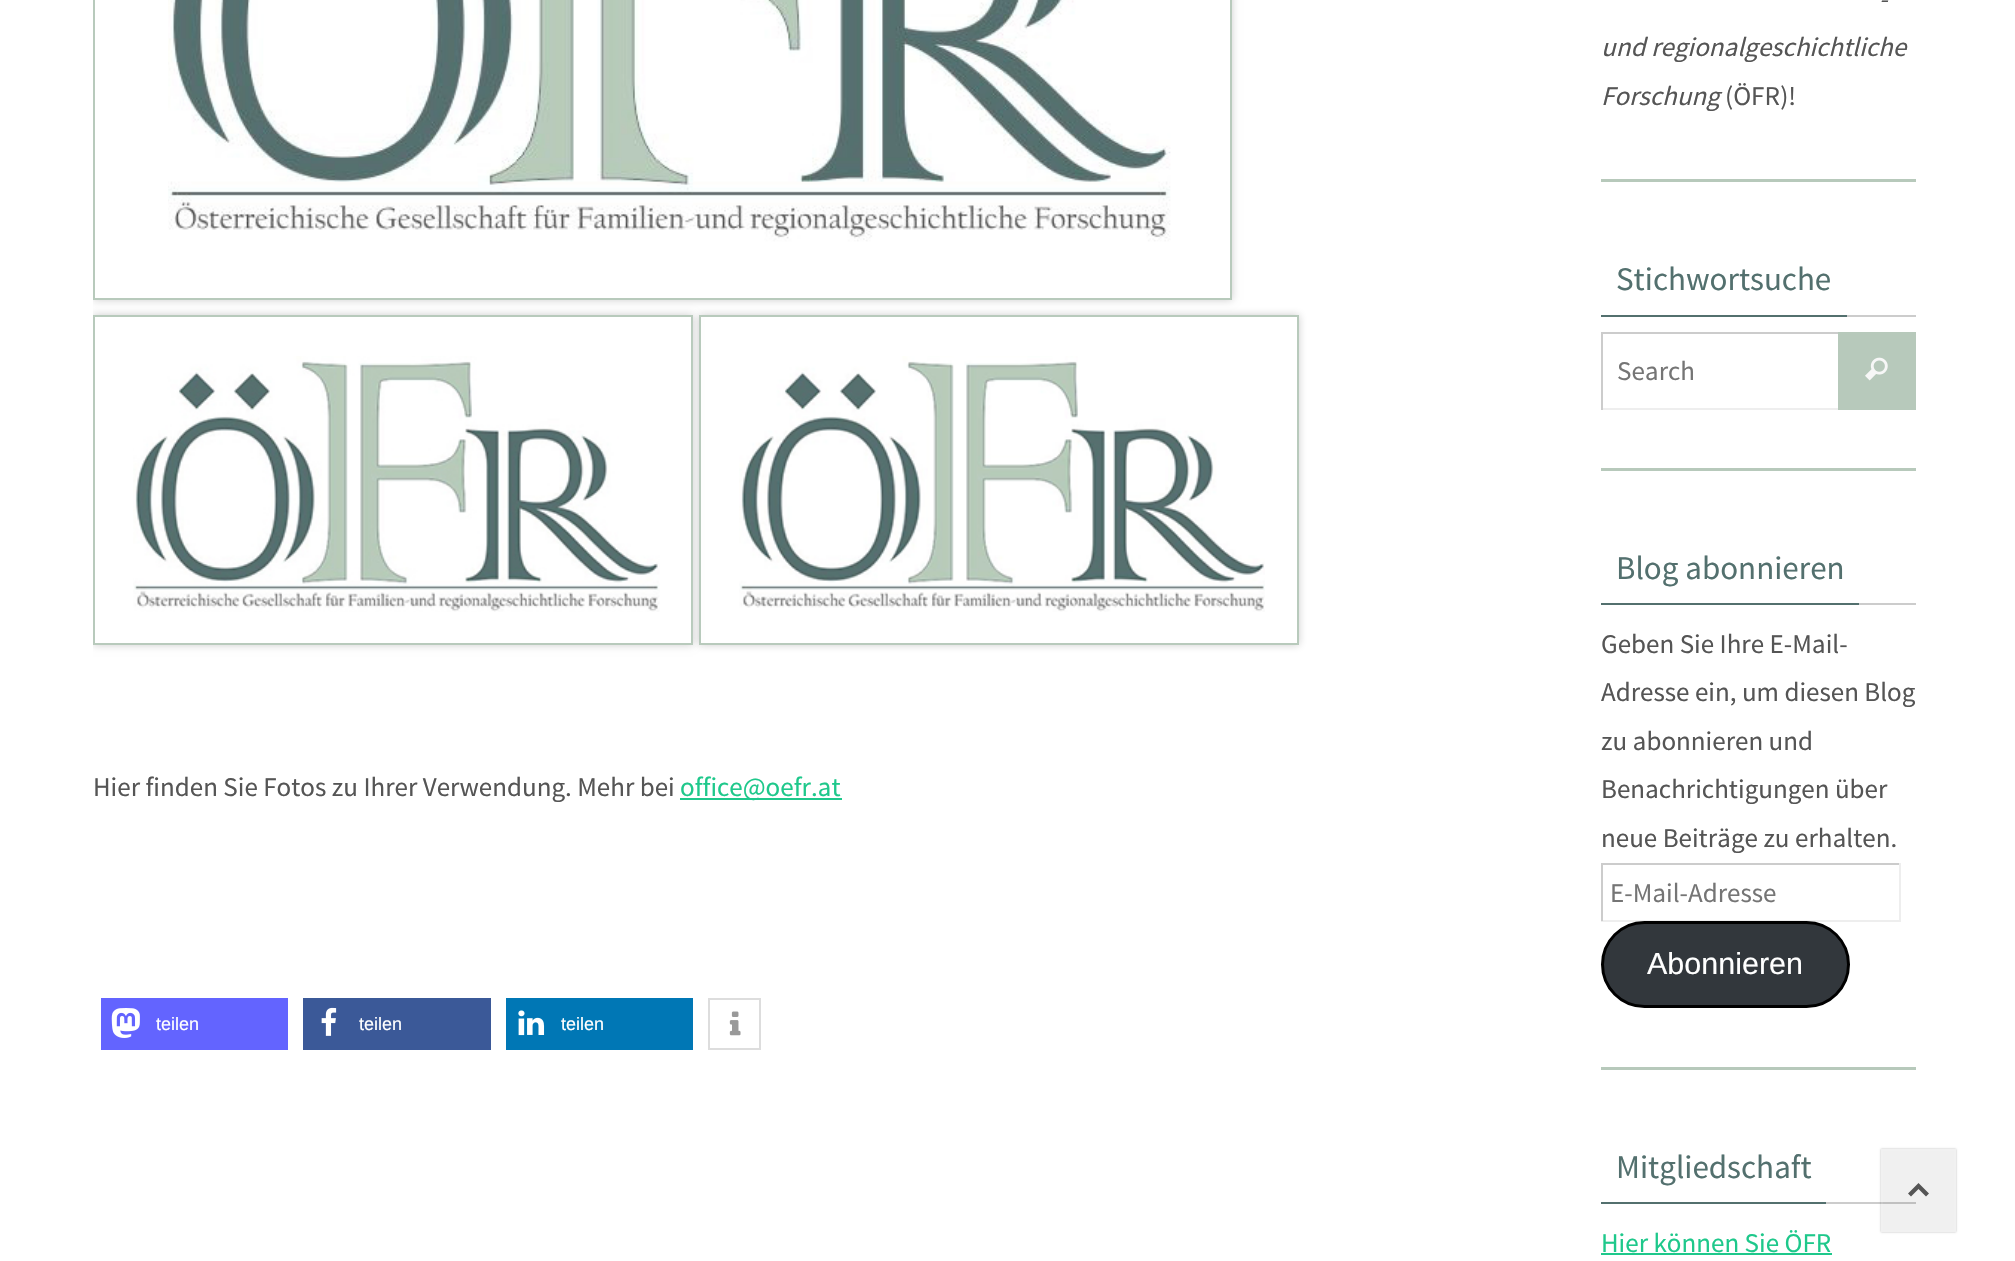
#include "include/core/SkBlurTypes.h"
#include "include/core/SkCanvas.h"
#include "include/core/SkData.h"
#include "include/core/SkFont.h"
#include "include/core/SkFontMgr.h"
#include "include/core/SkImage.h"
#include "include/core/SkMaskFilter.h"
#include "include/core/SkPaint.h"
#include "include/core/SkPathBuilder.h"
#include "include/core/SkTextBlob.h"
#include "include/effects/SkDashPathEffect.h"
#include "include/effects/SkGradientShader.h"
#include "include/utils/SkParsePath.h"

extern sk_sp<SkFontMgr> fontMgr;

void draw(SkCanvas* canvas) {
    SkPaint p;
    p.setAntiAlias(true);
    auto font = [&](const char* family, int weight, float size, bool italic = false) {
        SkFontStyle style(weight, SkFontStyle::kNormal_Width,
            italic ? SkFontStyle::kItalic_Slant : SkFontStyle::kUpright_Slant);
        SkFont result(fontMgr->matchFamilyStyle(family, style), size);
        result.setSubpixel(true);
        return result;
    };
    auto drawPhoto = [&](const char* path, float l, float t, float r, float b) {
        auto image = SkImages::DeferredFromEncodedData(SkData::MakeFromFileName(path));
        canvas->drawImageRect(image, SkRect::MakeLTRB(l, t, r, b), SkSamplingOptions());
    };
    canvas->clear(0xFFFFFFFF);
    canvas->save();
    canvas->clipRect(SkRect::MakeLTRB(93, 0, 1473, 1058));
    canvas->clipPath(SkPathBuilder(SkPathFillType::kEvenOdd).moveTo(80, 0).lineTo(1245, 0).lineTo(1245, 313).lineTo(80, 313).close().moveTo(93, -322).lineTo(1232, -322).lineTo(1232, 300).lineTo(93, 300).close().detach(), true);
    p.setColor(0xFFCDCDCD);
    p.setMaskFilter(SkMaskFilter::MakeBlur(kNormal_SkBlurStyle, 4));
    canvas->drawRect(SkRect::MakeLTRB(93, -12, 1232, 300), p);
    p.setMaskFilter(nullptr);
    canvas->restore();
    p.setStyle(SkPaint::kStroke_Style);
    p.setStrokeWidth(2);
    p.setColor(0xFFB8CABC);
    canvas->drawRect(SkRect::MakeLTRB(94, -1, 1231, 299), p);
    drawPhoto("media/1.png", 168, 0, 1171, 242);
    canvas->save();
    canvas->clipRect(SkRect::MakeLTRB(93, 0, 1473, 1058));
    canvas->clipPath(SkPathBuilder(SkPathFillType::kEvenOdd).moveTo(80, 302).lineTo(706, 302).lineTo(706, 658).lineTo(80, 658).close().moveTo(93, 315).lineTo(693, 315).lineTo(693, 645).lineTo(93, 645).close().detach(), true);
    p.setStyle(SkPaint::kFill_Style);
    p.setColor(0xFFCDCDCD);
    p.setMaskFilter(SkMaskFilter::MakeBlur(kNormal_SkBlurStyle, 4));
    canvas->drawRect(SkRect::MakeLTRB(93, 315, 693, 645), p);
    p.setMaskFilter(nullptr);
    canvas->restore();
    p.setStyle(SkPaint::kStroke_Style);
    p.setColor(0xFFB8CABC);
    canvas->drawRect(SkRect::MakeLTRB(94, 316, 692, 644), p);
    canvas->save();
    canvas->clipPath(SkPathBuilder(SkPathFillType::kEvenOdd).moveTo(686, 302).lineTo(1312, 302).lineTo(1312, 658).lineTo(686, 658).close().moveTo(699, 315).lineTo(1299, 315).lineTo(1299, 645).lineTo(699, 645).close().detach(), true);
    p.setStyle(SkPaint::kFill_Style);
    p.setColor(0xFCCCCCCC);
    p.setMaskFilter(SkMaskFilter::MakeBlur(kNormal_SkBlurStyle, 4));
    canvas->drawRect(SkRect::MakeLTRB(699, 315, 1299, 645), p);
    p.setMaskFilter(nullptr);
    canvas->restore();
    p.setStyle(SkPaint::kStroke_Style);
    p.setColor(0xFCB7C9BB);
    canvas->drawRect(SkRect::MakeLTRB(700, 316, 1298, 644), p);
    drawPhoto("media/2.png", 133, 356, 660, 612);
    drawPhoto("media/3.png", 739, 356, 1265, 612);
    auto font1 = font("Source Sans Pro", 400, 27);
    p.setStyle(SkPaint::kFill_Style);
    p.setColor(0xFF555555);
    canvas->drawString("Hier finden Sie Fotos zu Ihrer Verwendung. Mehr bei", 93, 796, font1, p);
    p.setColor(0xFF1EC88B);
    canvas->drawRect(SkRect::MakeLTRB(680, 798, 842, 800), p);
    canvas->drawString("office@oefr.at", 680, 796, font1, p);
    p.setColor(0xFF6364FF);
    canvas->drawRect(SkRect::MakeLTRB(101, 998, 288, 1050), p);
    drawPhoto("media/4.png", 111, 1008, 140, 1038);
    auto font2 = font("Liberation Sans", 400, 18);
    p.setColor(0xFFFFFFFF);
    canvas->drawString("teilen", 156, 1030, font2, p);
    p.setColor(0xFF3B5998);
    canvas->drawRect(SkRect::MakeLTRB(303, 998, 491, 1050), p);
    drawPhoto("media/5.png", 321, 1007, 337, 1036);
    p.setColor(0xFFFFFFFF);
    canvas->drawString("teilen", 359, 1030, font2, p);
    p.setColor(0xFF0077B5);
    canvas->drawRect(SkRect::MakeLTRB(506, 998, 693, 1050), p);
    drawPhoto("media/6.png", 518, 1010, 545, 1036);
    p.setColor(0xFFFFFFFF);
    canvas->drawString("teilen", 561, 1030, font2, p);
    p.setStyle(SkPaint::kStroke_Style);
    p.setColor(0xFFDDDDDD);
    canvas->drawRect(SkRect::MakeLTRB(709, 999, 760, 1049), p);
    drawPhoto("media/7.png", 729, 1011, 741, 1036);
    auto font3 = font("Source Sans Pro", 400, 27, true);
    p.setStyle(SkPaint::kFill_Style);
    p.setColor(0xFF555555);
    {
        const struct { const char* s; float x, y; } items[] = {
            {"-", 1879, 8},
            {"und regionalgeschichtliche", 1601, 56},
            {"Forschung", 1601, 105},
        };
        for (auto [s, x, y] : items) {
            canvas->drawString(s, x, y, font3, p);
        }
    }
    canvas->drawString("(ÖFR)!", 1725, 105, font1, p);
    {
        const struct { float l, t, r, b; SkColor color; } items[] = {
            {1601, 179, 1916, 182, 0xFFB7C9BB},
            {1847, 315, 1916, 317, 0xFFCCCCCC},
            {1601, 315, 1847, 317, 0xFF53706E},
        };
        for (auto [l, t, r, b, color] : items) {
            p.setColor(color);
            canvas->drawRect(SkRect::MakeLTRB(l, t, r, b), p);
        }
    }
    auto font4 = font("Source Sans Pro", 400, 33);
    canvas->drawString("Stichwortsuche", 1616, 290, font4, p);
    {
        const struct { float l, t, r, b; SkColor color; } items[] = {
            {1838, 332, 1916, 410, 0xFFB7C9BB},
            {1601, 332, 1838, 334, 0xFFCCCCCC},
            {1601, 408, 1838, 410, 0xFFEEEEEE},
            {1601, 332, 1603, 410, 0xFFCCCCCC},
        };
        for (auto [l, t, r, b, color] : items) {
            p.setColor(color);
            canvas->drawRect(SkRect::MakeLTRB(l, t, r, b), p);
        }
    }
    p.setColor(0xFF757575);
    canvas->drawString("Search", 1617, 380, font1, p);
    drawPhoto("media/8.png", 1865, 357, 1888, 381);
    {
        const struct { float l, t, r, b; SkColor color; } items[] = {
            {1601, 468, 1916, 471, 0xFFB7C9BB},
            {1859, 603, 1916, 605, 0xFFCCCCCC},
            {1601, 603, 1859, 605, 0xFF53706E},
        };
        for (auto [l, t, r, b, color] : items) {
            p.setColor(color);
            canvas->drawRect(SkRect::MakeLTRB(l, t, r, b), p);
        }
    }
    canvas->drawString("Blog abonnieren", 1616, 579, font4, p);
    p.setColor(0xFF555555);
    {
        const struct { const char* s; float x, y; } items[] = {
            {"Geben Sie Ihre E-Mail-", 1601, 653},
            {"Adresse ein, um diesen Blog", 1601, 701},
            {"zu abonnieren und", 1601, 750},
            {"Benachrichtigungen über", 1601, 798},
            {"neue Beiträge zu erhalten.", 1601, 847},
        };
        for (auto [s, x, y] : items) {
            canvas->drawString(s, x, y, font1, p);
        }
    }
    {
        const struct { float l, t, r, b; SkColor color; } items[] = {
            {1601, 863, 1901, 865, 0xFFCCCCCC},
            {1899, 863, 1901, 921, 0xFFEEEEEE},
            {1601, 920, 1901, 922, 0xFFEEEEEE},
            {1601, 863, 1603, 921, 0xFFCCCCCC},
        };
        for (auto [l, t, r, b, color] : items) {
            p.setColor(color);
            canvas->drawRect(SkRect::MakeLTRB(l, t, r, b), p);
        }
    }
    p.setColor(0xFF757575);
    canvas->drawString("E-Mail-Adresse", 1610, 902, font1, p);
    p.setColor(0xFF32373C);
    canvas->drawRoundRect(SkRect::MakeLTRB(1602.5f, 922.5f, 1848.5f, 1006.5f), 42, 42, p);
    p.setStyle(SkPaint::kStroke_Style);
    p.setStrokeWidth(3);
    p.setColor(0xFF000000);
    canvas->drawRoundRect(SkRect::MakeLTRB(1602.5f, 922.5f, 1848.5f, 1006.5f), 42, 42, p);
    auto font5 = font("Liberation Sans", 400, 30.5f);
    p.setStyle(SkPaint::kFill_Style);
    p.setColor(0xFFFFFFFF);
    canvas->drawString("Abonnieren", 1647, 974, font5, p);
    {
        const struct { float l, t, r, b; SkColor color; } items[] = {
            {1601, 1067, 1916, 1070, 0xFFB7C9BB},
            {1826, 1202, 1916, 1204, 0xFFCCCCCC},
            {1601, 1202, 1826, 1204, 0xFF53706E},
        };
        for (auto [l, t, r, b, color] : items) {
            p.setColor(color);
            canvas->drawRect(SkRect::MakeLTRB(l, t, r, b), p);
        }
    }
    canvas->drawString("Mitgliedschaft", 1616, 1178, font4, p);
    p.setColor(0xFF1EC88B);
    canvas->drawString("Hier können Sie ÖFR", 1601, 1252, font1, p);
    canvas->drawRect(SkRect::MakeLTRB(1601, 1253, 1832, 1255), p);
    canvas->save();
    canvas->clipPath(SkPathBuilder(SkPathFillType::kEvenOdd).moveTo(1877, 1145).lineTo(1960, 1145).lineTo(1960, 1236).lineTo(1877, 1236).close().moveTo(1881, 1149).lineTo(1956, 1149).lineTo(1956, 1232).lineTo(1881, 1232).close().detach(), true);
    p.setColor(0x47000000);
    p.setMaskFilter(SkMaskFilter::MakeBlur(kNormal_SkBlurStyle, 1));
    canvas->drawRect(SkRect::MakeLTRB(1881, 1149, 1956, 1232), p);
    p.setMaskFilter(nullptr);
    canvas->restore();
    p.setColor(0x0F000000);
    canvas->drawRect(SkRect::MakeLTRB(1881, 1149, 1956, 1232), p);
    p.setStyle(SkPaint::kStroke_Style);
    p.setStrokeWidth(2);
    p.setColor(0x1AFFFFFF);
    canvas->drawRect(SkRect::MakeLTRB(1882, 1150, 1955, 1231), p);
    p.setStyle(SkPaint::kFill_Style);
    p.setColor(0xFF555555);
    canvas->drawPath(SkPathBuilder().moveTo(1908, 1193.5f).lineTo(1918.5f, 1183).lineTo(1929, 1193.5f).lineTo(1926, 1196.5f).lineTo(1918.5f, 1189).lineTo(1911, 1196.5f).close().detach(), p);
}
